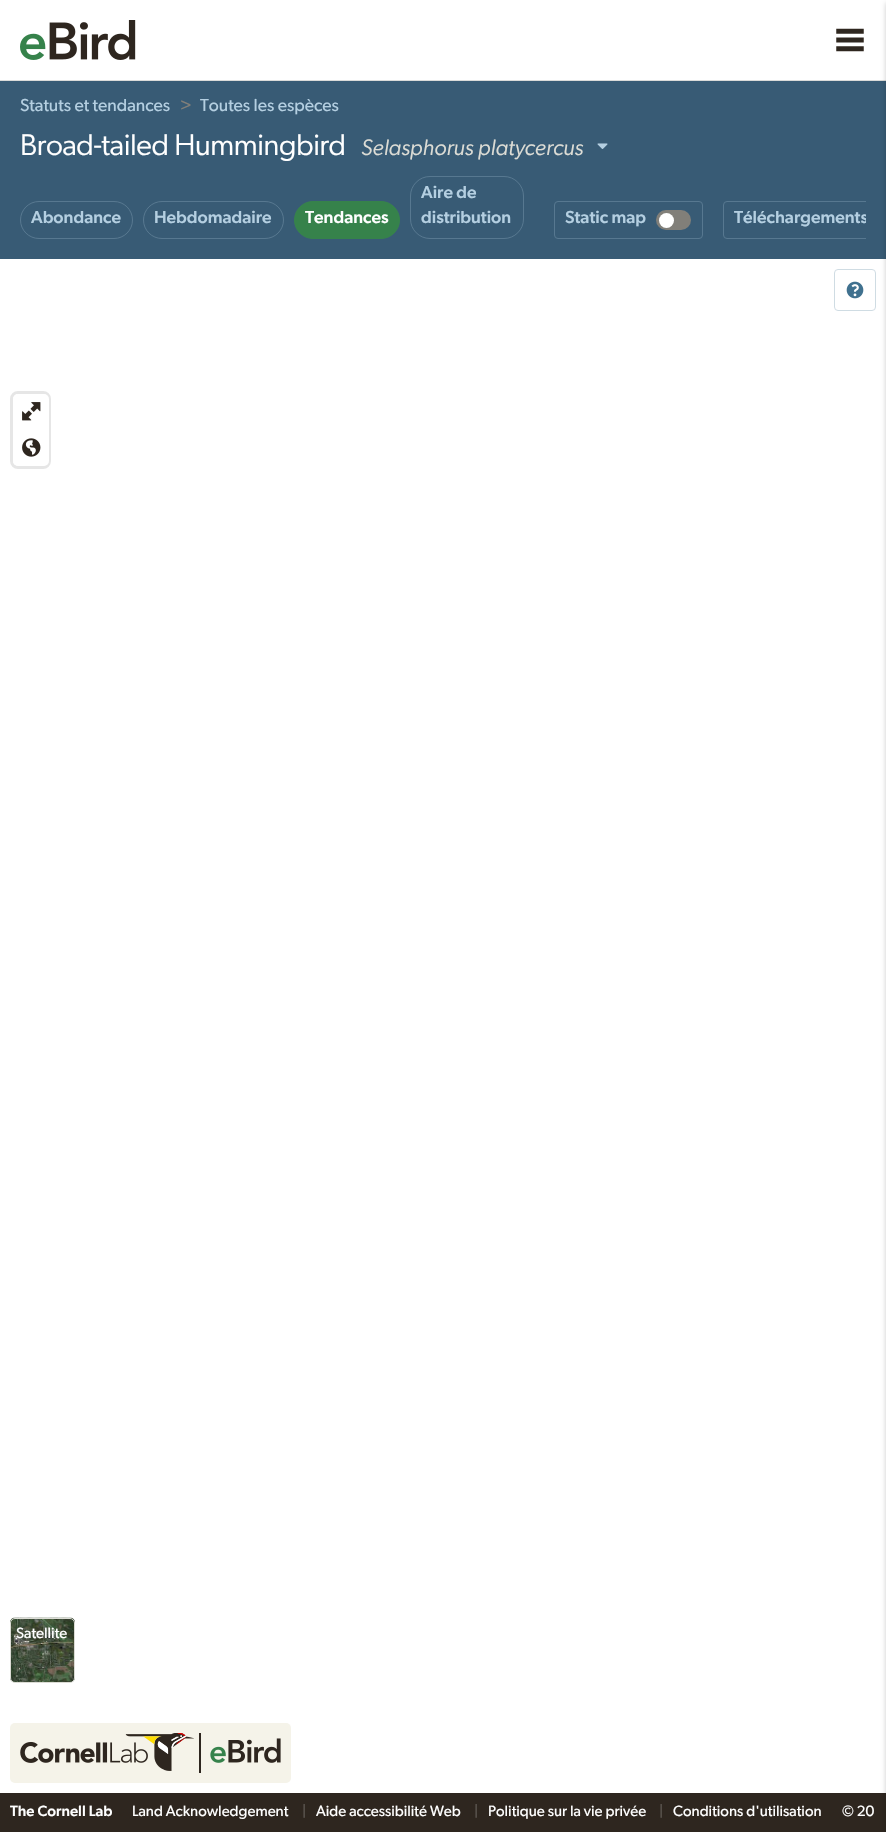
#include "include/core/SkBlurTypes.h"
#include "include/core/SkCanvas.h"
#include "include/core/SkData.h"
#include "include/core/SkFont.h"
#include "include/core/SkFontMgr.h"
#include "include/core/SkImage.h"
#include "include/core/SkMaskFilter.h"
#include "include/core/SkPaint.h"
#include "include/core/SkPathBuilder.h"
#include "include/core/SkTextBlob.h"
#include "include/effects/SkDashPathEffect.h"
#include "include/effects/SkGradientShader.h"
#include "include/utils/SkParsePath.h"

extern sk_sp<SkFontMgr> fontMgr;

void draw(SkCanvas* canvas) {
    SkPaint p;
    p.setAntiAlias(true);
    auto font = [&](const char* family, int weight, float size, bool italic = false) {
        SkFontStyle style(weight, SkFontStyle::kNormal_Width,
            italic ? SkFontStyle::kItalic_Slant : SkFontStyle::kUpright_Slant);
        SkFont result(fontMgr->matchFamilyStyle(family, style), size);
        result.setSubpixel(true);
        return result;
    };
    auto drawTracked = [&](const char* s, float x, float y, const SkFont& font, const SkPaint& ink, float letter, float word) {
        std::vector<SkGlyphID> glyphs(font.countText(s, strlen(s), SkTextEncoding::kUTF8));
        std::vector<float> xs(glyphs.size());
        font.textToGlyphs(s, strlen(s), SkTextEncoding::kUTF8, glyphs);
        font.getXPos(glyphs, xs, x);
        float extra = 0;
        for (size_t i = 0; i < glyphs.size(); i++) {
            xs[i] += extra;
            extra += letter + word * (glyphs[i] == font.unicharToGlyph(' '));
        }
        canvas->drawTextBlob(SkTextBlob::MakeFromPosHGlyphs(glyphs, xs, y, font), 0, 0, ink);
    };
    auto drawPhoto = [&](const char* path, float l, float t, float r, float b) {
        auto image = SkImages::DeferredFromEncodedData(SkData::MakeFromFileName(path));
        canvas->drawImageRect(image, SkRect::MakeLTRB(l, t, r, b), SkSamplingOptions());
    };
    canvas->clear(0xFFFFFFFF);
    p.setColor(0xFFDBDBD9);
    canvas->drawRect(SkRect::MakeLTRB(0, 80, 886, 81), p);
    drawPhoto("media/1.png", 20, 20, 136, 60);
    drawPhoto("media/2.png", 836, 28, 864, 52);
    p.setColor(0xFF385B75);
    canvas->drawRect(SkRect::MakeLTRB(0, 81, 886, 259), p);
    canvas->save();
    canvas->clipRect(SkRect::MakeLTRB(20, 175, 866, 249));
    p.setStyle(SkPaint::kStroke_Style);
    p.setStrokeWidth(1);
    p.setColor(0xFF577890);
    canvas->drawRoundRect(SkRect::MakeLTRB(723.5f, 201.5f, 879.5f, 238.5f), 3.5f, 3.5f, p);
    canvas->restore();
    p.setStyle(SkPaint::kFill_Style);
    p.setColor(0xFF2E261F);
    canvas->drawRect(SkRect::MakeLTRB(0, 1793, 886, 1832), p);
    p.setColor(0x33000000);
    p.setMaskFilter(SkMaskFilter::MakeBlur(kNormal_SkBlurStyle, 2.5f));
    canvas->drawRect(SkRect::MakeLTRB(886, 3, 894, 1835), p);
    p.setMaskFilter(nullptr);
    auto font1 = font("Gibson", 400, 17.5f);
    p.setColor(0xFFB4CFE1);
    canvas->drawString("Statuts et tendances", 20, 111, font1, p);
    p.setColor(0xFF817F79);
    canvas->drawString(">", 180, 111, font1, p);
    p.setColor(0xFFB4CFE1);
    canvas->drawString("Toutes les espèces", 200, 111, font1, p);
    auto font2 = font("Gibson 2", 400, 30);
    p.setColor(0xFFFFFFFF);
    drawTracked("Broad-tailed Hummingbird", 20, 155, font2, p, -0.4f, 0);
    auto font3 = font("Gibson", 400, 22.5f, true);
    p.setColor(0xFFDCDCD5);
    canvas->drawString("Selasphorus platycercus", 361, 155, font3, p);
    drawPhoto("media/3.png", 597, 143, 608, 149);
    p.setStyle(SkPaint::kStroke_Style);
    p.setColor(0xFF577890);
    canvas->drawRoundRect(SkRect::MakeLTRB(20.5f, 201.5f, 132.5f, 238.5f), 18.5f, 18.5f, p);
    auto font4 = font("Gibson", 500, 17.5f);
    p.setStyle(SkPaint::kFill_Style);
    p.setColor(0xFFB4CFE1);
    canvas->drawString("Abondance", 31, 223, font4, p);
    p.setStyle(SkPaint::kStroke_Style);
    p.setColor(0xFF577890);
    canvas->drawRoundRect(SkRect::MakeLTRB(143.5f, 201.5f, 283.5f, 238.5f), 18.5f, 18.5f, p);
    p.setStyle(SkPaint::kFill_Style);
    p.setColor(0xFFB4CFE1);
    canvas->drawString("Hebdomadaire", 154, 223, font4, p);
    p.setColor(0xFF36824B);
    canvas->drawRoundRect(SkRect::MakeLTRB(294.5f, 201.5f, 399.5f, 238.5f), 18.5f, 18.5f, p);
    p.setStyle(SkPaint::kStroke_Style);
    canvas->drawRoundRect(SkRect::MakeLTRB(294.5f, 201.5f, 399.5f, 238.5f), 18.5f, 18.5f, p);
    p.setStyle(SkPaint::kFill_Style);
    p.setColor(0xFFFFFFFF);
    canvas->drawString("Tendances", 305, 223, font4, p);
    p.setStyle(SkPaint::kStroke_Style);
    p.setColor(0xFF577890);
    canvas->drawRoundRect(SkRect::MakeLTRB(410.5f, 176.5f, 523.5f, 238.5f), 19.5f, 19.5f, p);
    p.setStyle(SkPaint::kFill_Style);
    p.setColor(0xFFB4CFE1);
    canvas->drawString("Aire de", 421, 198, font4, p);
    canvas->drawString("distribution", 421, 223, font4, p);
    p.setStyle(SkPaint::kStroke_Style);
    p.setColor(0xFF577890);
    canvas->drawRoundRect(SkRect::MakeLTRB(554.5f, 201.5f, 702.5f, 238.5f), 3.5f, 3.5f, p);
    p.setStyle(SkPaint::kFill_Style);
    p.setColor(0xFFB4CFE1);
    canvas->drawString("Static map", 565, 223, font4, p);
    p.setColor(0xFF817F79);
    canvas->drawRoundRect(SkRect::MakeLTRB(656, 210, 691, 230), 10, 10, p);
    p.setColor(0xFFFFFFFF);
    canvas->drawCircle(666.5f, 220.5f, 7.5f, p);
    canvas->save();
    canvas->clipRect(SkRect::MakeLTRB(20, 175, 866, 249));
    p.setColor(0xFFB4CFE1);
    canvas->drawString("Téléchargements", 734, 223, font4, p);
    canvas->restore();
    p.setStyle(SkPaint::kStroke_Style);
    p.setColor(0xFFCFDCE3);
    canvas->drawRoundRect(SkRect::MakeLTRB(834.5f, 269.5f, 875.5f, 310.5f), 3.5f, 3.5f, p);
    drawPhoto("media/4.png", 846, 281, 864, 299);
    p.setStrokeWidth(3);
    p.setColor(0xFFE6E6E6);
    canvas->drawRoundRect(SkRect::MakeLTRB(11.5f, 392.5f, 49.5f, 467.5f), 6.5f, 6.5f, p);
    p.setStyle(SkPaint::kFill_Style);
    p.setColor(0xFFFFFFFF);
    canvas->drawRoundRect(SkRect::MakeLTRB(13, 394, 49, 466), 5, 5, p);
    drawPhoto("media/5.png", 22, 402, 41, 421);
    drawPhoto("media/6.png", 22, 438, 41, 457);
    drawPhoto("media/7.png", 10, 1617, 75, 1683);
    p.setStyle(SkPaint::kStroke_Style);
    p.setStrokeWidth(1);
    p.setColor(0xFFDCDCD5);
    canvas->drawRoundRect(SkRect::MakeLTRB(10.5f, 1618.5f, 74.5f, 1682.5f), 4.5f, 4.5f, p);
    auto font5 = font("Gibson", 400, 15);
    p.setStyle(SkPaint::kFill_Style);
    p.setColor(0xFFFFFFFF);
    canvas->drawString("Satellite", 16, 1638, font5, p);
    p.setColor(0xFFF5F3E9);
    canvas->drawRoundRect(SkRect::MakeLTRB(10, 1723, 291, 1783), 5, 5, p);
    drawPhoto("media/8.png", 20, 1733, 281, 1773);
    auto font6 = font("Gibson", 500, 15);
    p.setColor(0xFFFFFFFF);
    canvas->drawString("The Cornell Lab", 10, 1816, font6, p);
    canvas->drawString("Land Acknowledgement", 132, 1816, font5, p);
    p.setColor(0xFF625C57);
    canvas->drawString("|", 302, 1816, font5, p);
    p.setColor(0xFFFFFFFF);
    canvas->drawString("Aide accessibilité Web", 316, 1816, font5, p);
    p.setColor(0xFF625C57);
    canvas->drawString("|", 474, 1816, font5, p);
    p.setColor(0xFFFFFFFF);
    canvas->drawString("Politique sur la vie privée", 488, 1816, font5, p);
    p.setColor(0xFF625C57);
    canvas->drawString("|", 659, 1816, font5, p);
    p.setColor(0xFFFFFFFF);
    canvas->drawString("Conditions d'utilisation", 673, 1816, font5, p);
    canvas->drawString("© 20", 842, 1816, font5, p);
}
